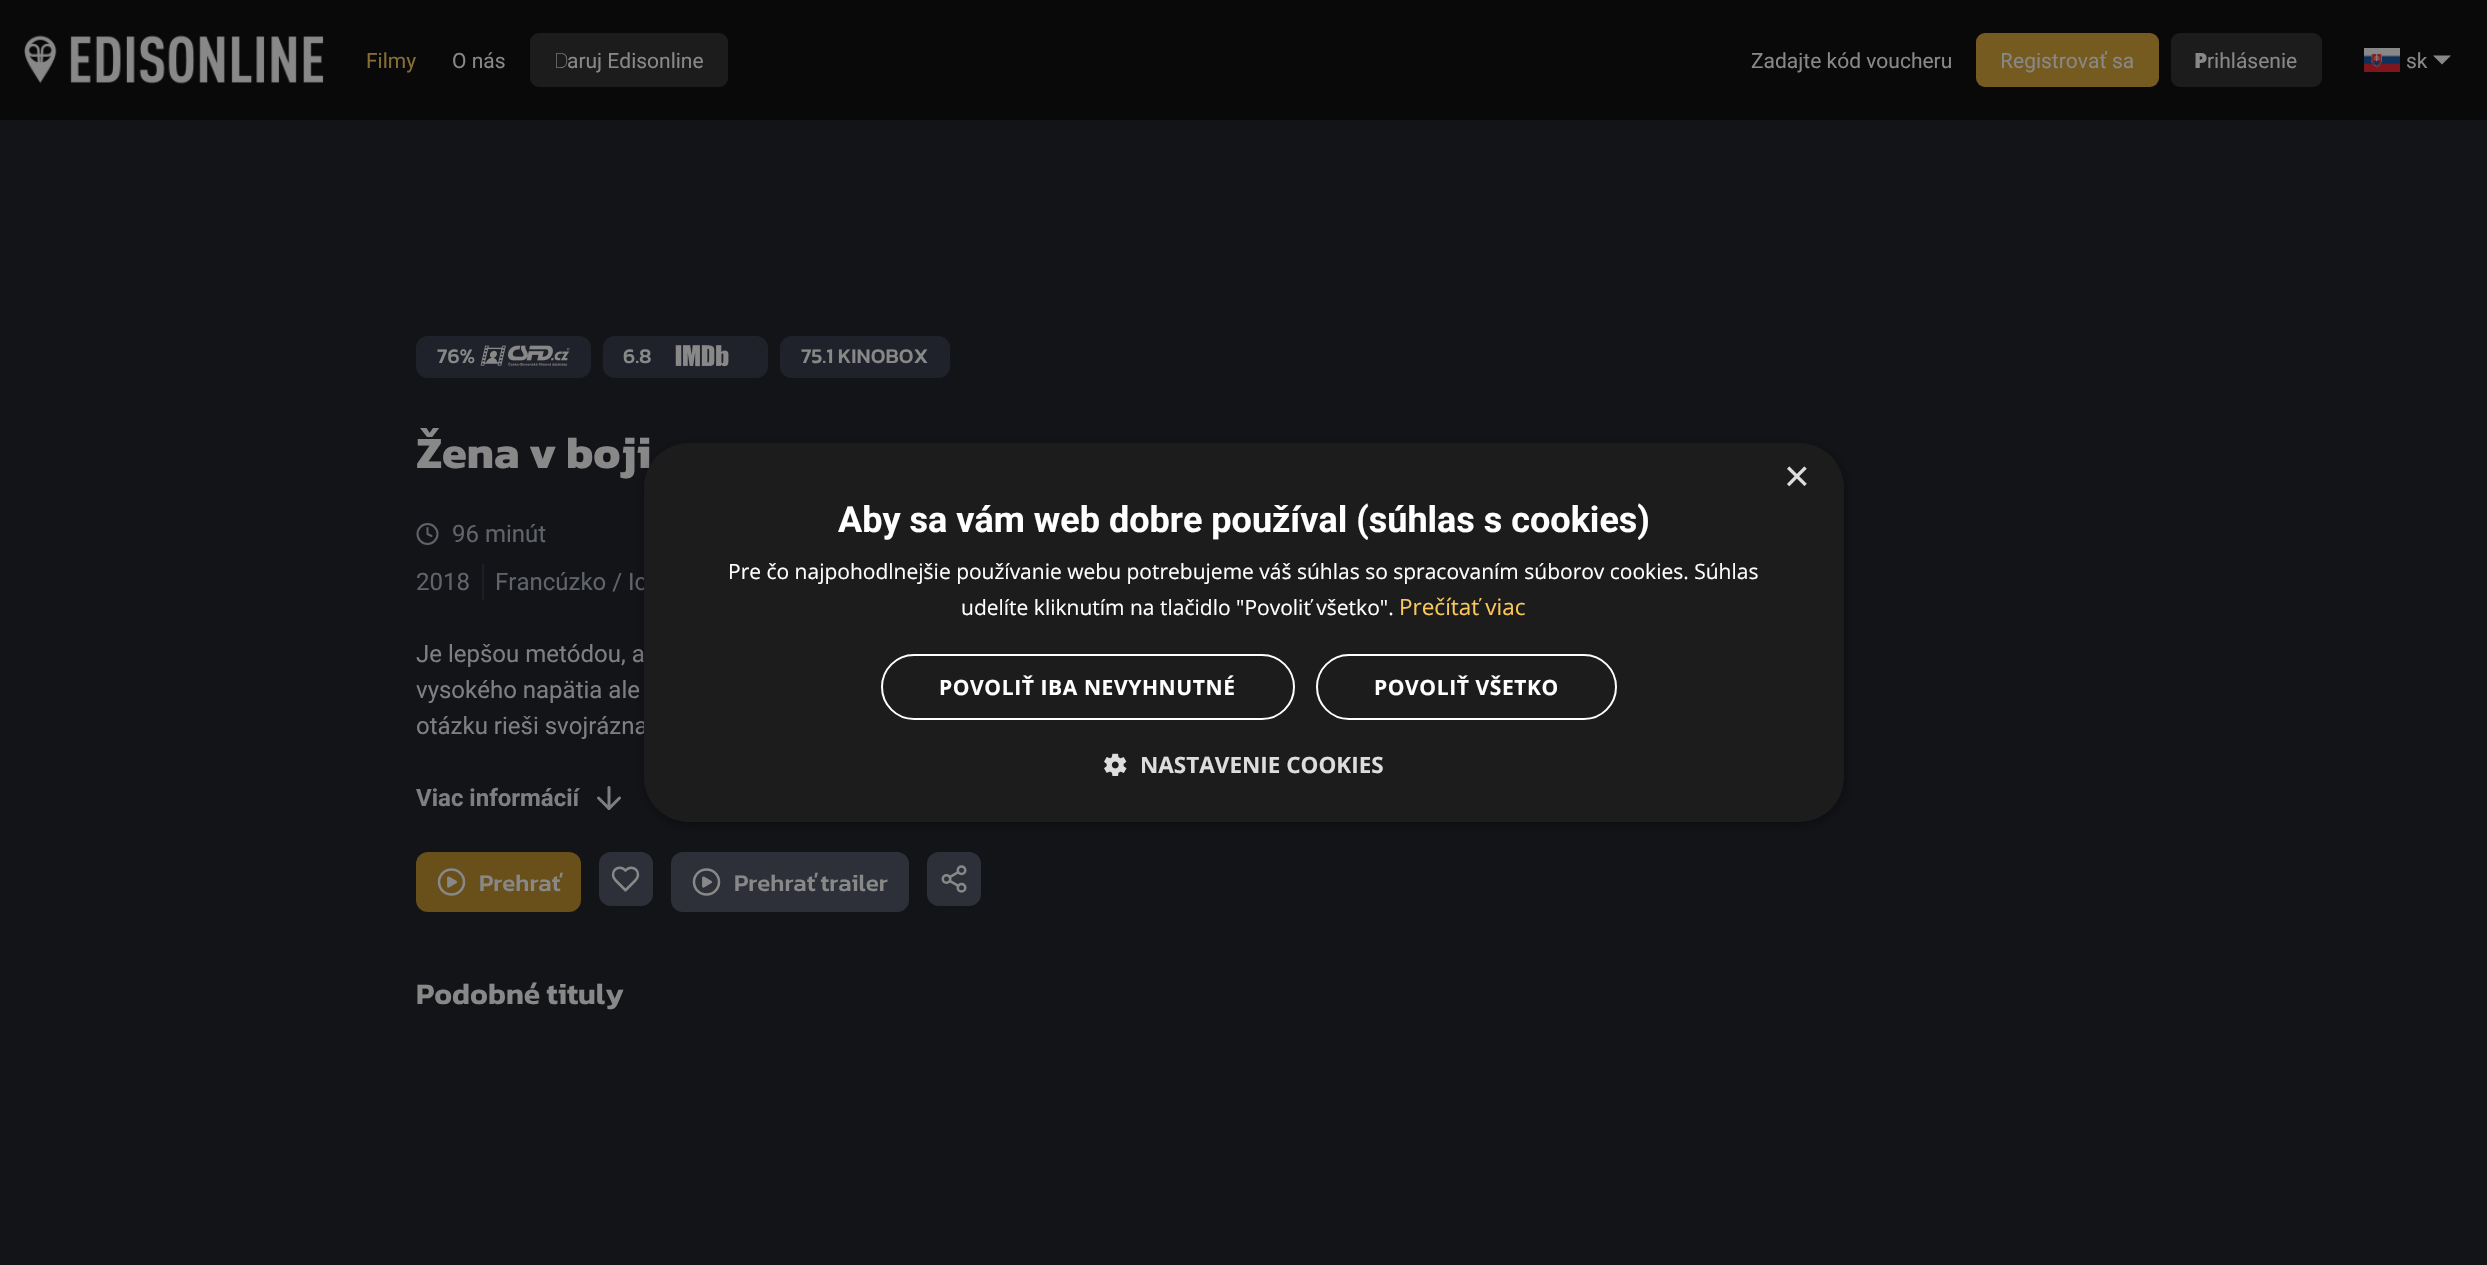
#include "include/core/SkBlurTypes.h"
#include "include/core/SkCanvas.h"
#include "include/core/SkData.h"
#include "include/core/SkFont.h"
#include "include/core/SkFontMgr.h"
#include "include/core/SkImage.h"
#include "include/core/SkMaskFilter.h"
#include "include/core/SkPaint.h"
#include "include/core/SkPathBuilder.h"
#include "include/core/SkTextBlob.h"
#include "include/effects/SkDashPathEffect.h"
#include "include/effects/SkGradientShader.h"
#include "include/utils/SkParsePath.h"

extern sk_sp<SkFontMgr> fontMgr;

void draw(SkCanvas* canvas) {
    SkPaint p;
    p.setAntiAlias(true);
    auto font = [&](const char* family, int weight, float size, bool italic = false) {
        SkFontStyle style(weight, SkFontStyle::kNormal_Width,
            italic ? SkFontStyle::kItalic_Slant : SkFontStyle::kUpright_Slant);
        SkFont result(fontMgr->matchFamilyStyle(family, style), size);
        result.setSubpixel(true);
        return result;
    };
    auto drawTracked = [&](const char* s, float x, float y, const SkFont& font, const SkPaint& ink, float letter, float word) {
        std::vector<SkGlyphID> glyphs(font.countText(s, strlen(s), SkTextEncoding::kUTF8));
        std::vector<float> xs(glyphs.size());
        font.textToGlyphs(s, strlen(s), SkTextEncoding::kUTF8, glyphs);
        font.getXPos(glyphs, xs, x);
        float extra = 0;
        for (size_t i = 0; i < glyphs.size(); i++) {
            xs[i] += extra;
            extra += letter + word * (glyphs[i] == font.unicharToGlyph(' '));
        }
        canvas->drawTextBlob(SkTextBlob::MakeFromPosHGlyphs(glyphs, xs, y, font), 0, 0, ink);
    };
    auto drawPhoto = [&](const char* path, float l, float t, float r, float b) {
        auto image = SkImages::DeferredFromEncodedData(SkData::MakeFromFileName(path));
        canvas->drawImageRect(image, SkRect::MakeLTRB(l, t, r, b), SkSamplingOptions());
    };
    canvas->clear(0xFF131418);
    p.setColor(0xFF090909);
    canvas->drawRect(SkRect::MakeLTRB(0, 0, 2487, 120), p);
    drawPhoto("media/1.png", 24, 35, 324, 84);
    auto font1 = font("Roboto", 400, 21);
    p.setColor(0xFF866D36);
    canvas->drawString("Filmy", 366, 68, font1, p);
    p.setColor(0xFF888888);
    canvas->drawString("O nás", 452, 68, font1, p);
    p.setColor(0xFF1C1C1C);
    canvas->drawRoundRect(SkRect::MakeLTRB(530, 33, 728, 87), 9, 9, p);
    auto font2 = font("Noto Sans", 100, 21);
    p.setColor(0xFF888888);
    canvas->drawString("D", 554, 68, font2, p);
    canvas->drawString("aruj Edisonline", 567, 68, font1, p);
    canvas->drawString("Zadajte kód voucheru", 1751, 68, font1, p);
    p.setColor(0xFF765B20);
    canvas->drawRoundRect(SkRect::MakeLTRB(1976, 33, 2159, 87), 9, 9, p);
    auto font3 = font("Noto Sans", 400, 21);
    p.setColor(0xFF888888);
    canvas->drawString("R", 2000, 68, font3, p);
    canvas->drawString("egistrovať sa", 2013, 68, font1, p);
    p.setColor(0xFF1C1C1C);
    canvas->drawRoundRect(SkRect::MakeLTRB(2171, 33, 2322, 87), 9, 9, p);
    auto font4 = font("Noto Sans", 900, 21);
    p.setColor(0xFF888888);
    canvas->drawString("P", 2194, 68, font4, p);
    canvas->drawString("rihlásenie", 2207, 68, font1, p);
    drawPhoto("media/2.png", 2364, 48, 2400, 72);
    canvas->drawString("sk", 2406, 68, font1, p);
    canvas->drawPath(SkPathBuilder().moveTo(2433, 55.5f).lineTo(2451, 55.5f).lineTo(2442, 64.5f).close().detach(), p);
    p.setColor(0xFF1F222A);
    canvas->drawRoundRect(SkRect::MakeLTRB(416, 336, 591, 378), 12, 12, p);
    auto font5 = font("Kanit", 500, 21);
    p.setColor(0xFF888888);
    canvas->drawString("76%", 437, 363, font5, p);
    drawPhoto("media/3.png", 480, 345, 570, 366);
    p.setColor(0xFF1F222A);
    canvas->drawRoundRect(SkRect::MakeLTRB(603, 336, 768, 378), 12, 12, p);
    p.setColor(0xFF888888);
    canvas->drawString("6.8", 623, 363, font5, p);
    drawPhoto("media/4.png", 675, 345, 729, 367);
    p.setColor(0xFF1F222A);
    canvas->drawRoundRect(SkRect::MakeLTRB(780, 336, 950, 378), 12, 12, p);
    p.setColor(0xFF888888);
    canvas->drawString("75.1 KINOBOX", 801, 363, font5, p);
    auto font6 = font("Kanit", 700, 45);
    canvas->drawString("Žena v boji", 416, 468, font6, p);
    drawPhoto("media/5.png", 416, 523, 439, 545);
    auto font7 = font("Roboto", 400, 24);
    p.setColor(0xFF60636A);
    canvas->drawString("96 minút", 452, 542, font7, p);
    canvas->drawString("2018", 416, 590, font7, p);
    p.setColor(0xFF1C1F26);
    canvas->drawRect(SkRect::MakeLTRB(482, 564, 484, 600), p);
    p.setColor(0xFF60636A);
    canvas->drawString("Francúzko / Ic", 495, 590, font7, p);
    p.setColor(0xFF7E7F82);
    {
        const struct { const char* s; float x, y; } items[] = {
            {"Je lepšou metódou, a", 416, 662},
            {"vysokého napätia ale", 416, 698},
            {"otázku rieši svojrázna", 416, 734},
        };
        for (auto [s, x, y] : items) {
            canvas->drawString(s, x, y, font7, p);
        }
    }
    auto font8 = font("Roboto", 700, 24);
    canvas->drawString("Viac informácií", 416, 806, font8, p);
    drawPhoto("media/6.png", 597, 786, 621, 810);
    p.setColor(0xFF694F19);
    canvas->drawRoundRect(SkRect::MakeLTRB(416, 852, 581, 912), 12, 12, p);
    drawPhoto("media/7.png", 437, 868, 466, 896);
    auto font9 = font("Kanit", 500, 24);
    p.setColor(0xFF888888);
    canvas->drawString("Prehrať", 479, 891, font9, p);
    p.setColor(0xFF2D3039);
    canvas->drawRoundRect(SkRect::MakeLTRB(599, 852, 653, 906), 12, 12, p);
    drawPhoto("media/8.png", 611, 866, 640, 892);
    canvas->drawRoundRect(SkRect::MakeLTRB(671, 852, 909, 912), 12, 12, p);
    drawPhoto("media/9.png", 692, 868, 721, 896);
    p.setColor(0xFF888888);
    canvas->drawString("Prehrať trailer", 734, 891, font9, p);
    p.setColor(0xFF2D3039);
    canvas->drawRoundRect(SkRect::MakeLTRB(927, 852, 981, 906), 12, 12, p);
    drawPhoto("media/10.png", 941, 865, 967, 893);
    auto font10 = font("Kanit", 600, 30);
    p.setColor(0xFF888888);
    canvas->drawString("Podobné tituly", 416, 1004, font10, p);
    p.setColor(0x59000000);
    p.setMaskFilter(SkMaskFilter::MakeBlur(kNormal_SkBlurStyle, 6));
    canvas->drawRoundRect(SkRect::MakeLTRB(645, 446, 1845, 825), 45, 45, p);
    p.setMaskFilter(nullptr);
    p.setColor(0xFF1C1C1C);
    canvas->drawRoundRect(SkRect::MakeLTRB(644, 443, 1844, 822), 45, 45, p);
    auto font11 = font("Liberation Sans", 400, 44);
    p.setColor(0xFFDDDDDD);
    canvas->drawString("×", 1784, 491, font11, p);
    auto font12 = font("Roboto", 700, 36);
    p.setColor(0xFFFFFFFF);
    canvas->drawString("Aby sa vám web dobre používal (súhlas s cookies)", 838, 532, font12, p);
    auto font13 = font("Open Sans", 400, 21);
    canvas->drawString("Pre čo najpohodlnejšie používanie webu potrebujeme váš súhlas so spracovaním súborov cookies. Súhlas", 728, 579, font13, p);
    canvas->drawString("udelíte kliknutím na tlačidlo \"Povoliť všetko\".", 961, 615, font13, p);
    auto font14 = font("Open Sans", 400, 22.5f);
    p.setColor(0xFFFAC85A);
    canvas->drawString("Prečítať viac", 1399, 615, font14, p);
    p.setStyle(SkPaint::kStroke_Style);
    p.setStrokeWidth(2);
    p.setColor(0xFFFFFFFF);
    canvas->drawRoundRect(SkRect::MakeLTRB(882, 655, 1294, 719), 32, 32, p);
    auto font15 = font("Open Sans", 700, 21);
    p.setStyle(SkPaint::kFill_Style);
    drawTracked("POVOLIŤ IBA NEVYHNUTNÉ", 939, 695, font15, p, 0.6f, 0);
    p.setStyle(SkPaint::kStroke_Style);
    canvas->drawRoundRect(SkRect::MakeLTRB(1317, 655, 1616, 719), 32, 32, p);
    p.setStyle(SkPaint::kFill_Style);
    drawTracked("POVOLIŤ VŠETKO", 1374, 695, font15, p, 0.6f, 0);
    drawPhoto("media/11.png", 1104, 753, 1127, 776);
    auto font16 = font("Open Sans", 700, 22.5f);
    p.setColor(0xFFDDDDDD);
    canvas->drawString("NASTAVENIE COOKIES", 1140, 773, font16, p);
}
